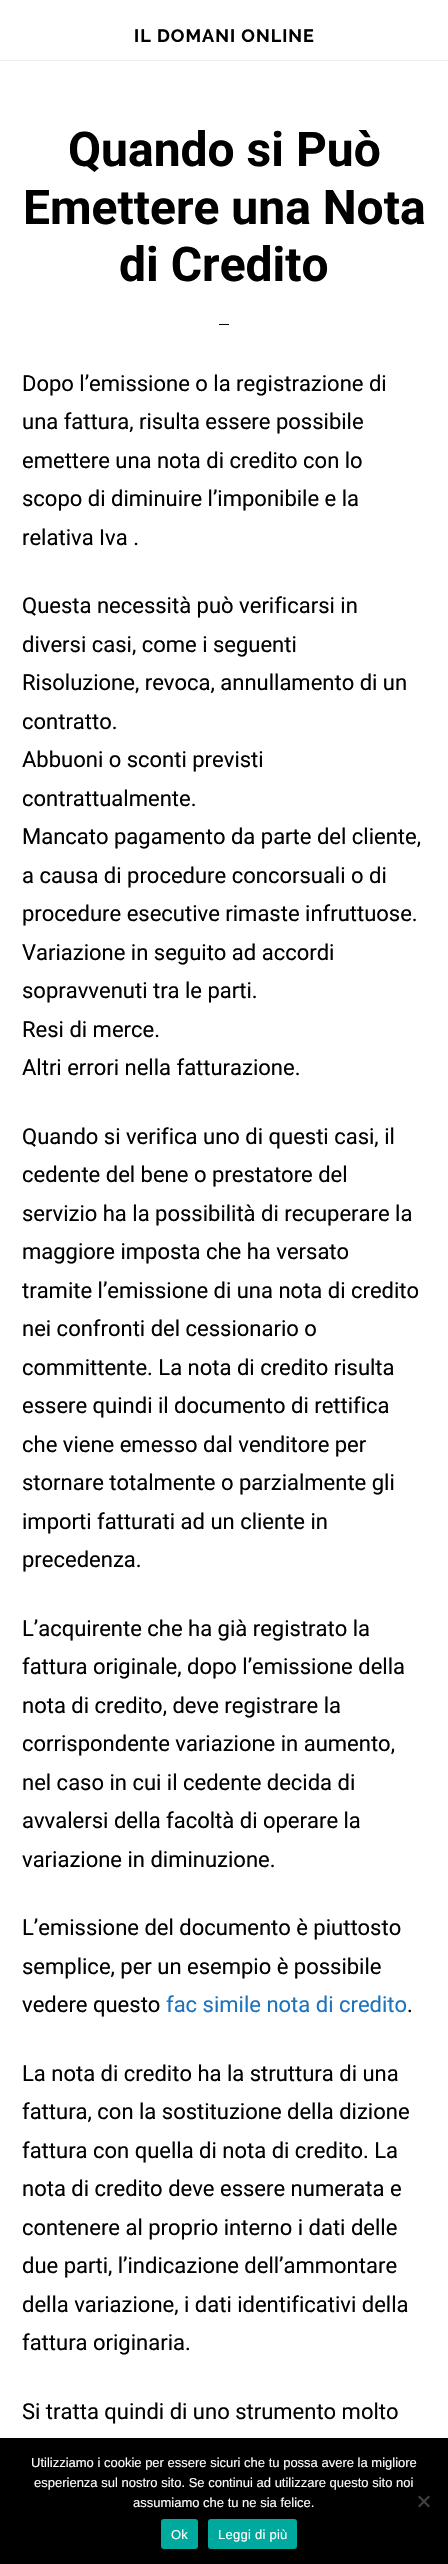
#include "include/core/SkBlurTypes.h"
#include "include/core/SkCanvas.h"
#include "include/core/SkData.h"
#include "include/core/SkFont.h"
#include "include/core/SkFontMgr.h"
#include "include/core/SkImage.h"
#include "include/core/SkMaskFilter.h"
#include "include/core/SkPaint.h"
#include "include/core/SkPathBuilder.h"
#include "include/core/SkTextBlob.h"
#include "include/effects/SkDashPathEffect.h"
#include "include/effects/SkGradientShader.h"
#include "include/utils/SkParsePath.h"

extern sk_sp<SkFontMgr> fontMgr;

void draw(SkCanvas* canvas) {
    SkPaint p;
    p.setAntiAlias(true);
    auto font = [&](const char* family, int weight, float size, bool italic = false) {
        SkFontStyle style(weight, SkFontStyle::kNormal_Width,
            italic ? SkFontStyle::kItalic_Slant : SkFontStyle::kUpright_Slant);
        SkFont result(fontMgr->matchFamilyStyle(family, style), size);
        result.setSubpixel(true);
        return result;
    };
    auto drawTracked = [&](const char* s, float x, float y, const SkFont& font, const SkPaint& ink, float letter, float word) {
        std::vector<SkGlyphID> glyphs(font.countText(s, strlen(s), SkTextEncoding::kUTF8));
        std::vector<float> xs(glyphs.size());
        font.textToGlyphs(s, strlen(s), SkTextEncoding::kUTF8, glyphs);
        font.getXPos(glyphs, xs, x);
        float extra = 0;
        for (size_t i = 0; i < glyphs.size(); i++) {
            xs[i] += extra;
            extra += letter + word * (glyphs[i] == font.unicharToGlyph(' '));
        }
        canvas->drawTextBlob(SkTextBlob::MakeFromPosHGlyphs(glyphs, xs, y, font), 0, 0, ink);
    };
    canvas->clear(0xFFFFFFFF);
    p.setColor(0xFFEEEEEE);
    canvas->drawRect(SkRect::MakeLTRB(0, 60, 448, 61), p);
    auto font1 = font("Raleway", 100, 18);
    p.setColor(0xFF000000);
    drawTracked("IL DOMANI ONLINE", 134, 42, font1, p, 1, 0);
    auto font2 = font("Roboto", 700, 48);
    {
        const struct { const char* s; float x, y; } items[] = {
            {"Quando si Può", 68, 166},
            {"Emettere una Nota", 23, 224},
            {"di Credito", 119, 281},
        };
        for (auto [s, x, y] : items) {
            canvas->drawString(s, x, y, font2, p);
        }
    }
    canvas->drawRect(SkRect::MakeLTRB(219, 324, 229, 325), p);
    auto font3 = font("Roboto", 400, 22);
    {
        const struct { const char* s; float x, y; } items[] = {
            {"Dopo l’emissione o la registrazione di", 22, 391},
            {"una fattura, risulta essere possibile", 22, 429},
            {"emettere una nota di credito con lo", 22, 468},
            {"scopo di diminuire l’imponibile e la", 22, 506},
            {"relativa Iva .", 22, 545},
            {"Questa necessità può verificarsi in", 22, 613},
            {"diversi casi, come i seguenti", 22, 652},
            {"Risoluzione, revoca, annullamento di un", 22, 690},
            {"contratto.", 22, 729},
            {"Abbuoni o sconti previsti", 22, 767},
            {"contrattualmente.", 22, 806},
            {"Mancato pagamento da parte del cliente,", 22, 844},
            {"a causa di procedure concorsuali o di", 22, 883},
            {"procedure esecutive rimaste infruttuose.", 22, 921},
            {"Variazione in seguito ad accordi", 22, 960},
            {"sopravvenuti tra le parti.", 22, 998},
            {"Resi di merce.", 22, 1037},
            {"Altri errori nella fatturazione.", 22, 1075},
            {"Quando si verifica uno di questi casi, il", 22, 1144},
            {"cedente del bene o prestatore del", 22, 1182},
            {"servizio ha la possibilità di recuperare la", 22, 1221},
            {"maggiore imposta che ha versato", 22, 1259},
            {"tramite l’emissione di una nota di credito", 22, 1298},
            {"nei confronti del cessionario o", 22, 1336},
            {"committente. La nota di credito risulta", 22, 1375},
            {"essere quindi il documento di rettifica", 22, 1413},
            {"che viene emesso dal venditore per", 22, 1452},
            {"stornare totalmente o parzialmente gli", 22, 1490},
            {"importi fatturati ad un cliente in", 22, 1529},
            {"precedenza.", 22, 1567},
            {"L’acquirente che ha già registrato la", 22, 1636},
            {"fattura originale, dopo l’emissione della", 22, 1674},
            {"nota di credito, deve registrare la", 22, 1713},
            {"corrispondente variazione in aumento,", 22, 1751},
            {"nel caso in cui il cedente decida di", 22, 1790},
            {"avvalersi della facoltà di operare la", 22, 1828},
            {"variazione in diminuzione.", 22, 1867},
            {"L’emissione del documento è piuttosto", 22, 1935},
            {"semplice, per un esempio è possibile", 22, 1974},
            {"vedere questo", 22, 2012},
        };
        for (auto [s, x, y] : items) {
            canvas->drawString(s, x, y, font3, p);
        }
    }
    p.setColor(0xFF1E73BE);
    canvas->drawString("fac simile nota di credito", 166, 2012, font3, p);
    p.setColor(0xFF000000);
    {
        const struct { const char* s; float x, y; } items[] = {
            {".", 407, 2012},
            {"La nota di credito ha la struttura di una", 22, 2081},
            {"fattura, con la sostituzione della dizione", 22, 2119},
            {"fattura con quella di nota di credito. La", 22, 2158},
            {"nota di credito deve essere numerata e", 22, 2196},
            {"contenere al proprio interno i dati delle", 22, 2235},
            {"due parti, l’indicazione dell’ammontare", 22, 2273},
            {"della variazione, i dati identificativi della", 22, 2312},
            {"fattura originaria.", 22, 2350},
            {"Si tratta quindi di uno strumento molto", 22, 2419},
        };
        for (auto [s, x, y] : items) {
            canvas->drawString(s, x, y, font3, p);
        }
    }
    canvas->drawRect(SkRect::MakeLTRB(0, 2438, 448, 2564), p);
    auto font4 = font("Liberation Sans", 400, 13);
    p.setColor(0xFFFFFFFF);
    {
        const struct { const char* s; float x, y; } items[] = {
            {"Utilizziamo i cookie per essere sicuri che tu possa avere la migliore", 31, 2467},
            {"esperienza sul nostro sito. Se continui ad utilizzare questo sito noi", 34, 2487},
            {"assumiamo che tu ne sia felice.", 133, 2507},
        };
        for (auto [s, x, y] : items) {
            canvas->drawString(s, x, y, font4, p);
        }
    }
    p.setColor(0xFF404040);
    canvas->drawPath(SkPathBuilder().moveTo(428.5f, 2495.5f).lineTo(430, 2497).lineTo(419.5f, 2507.5f).lineTo(418, 2506).close().detach(), p);
    canvas->drawPath(SkPathBuilder().moveTo(418, 2497).lineTo(419.5f, 2495.5f).lineTo(430, 2506).lineTo(428.5f, 2507.5f).close().detach(), p);
    p.setColor(0xFF00A99D);
    canvas->drawRoundRect(SkRect::MakeLTRB(161, 2519, 198, 2549), 3, 3, p);
    p.setColor(0xFFFFFFFF);
    drawTracked("Ok", 171, 2539, font4, p, 0.25f, 0);
    p.setColor(0xFF00A99D);
    canvas->drawRoundRect(SkRect::MakeLTRB(208, 2519, 297, 2549), 3, 3, p);
    p.setColor(0xFFFFFFFF);
    drawTracked("Leggi di più", 218, 2539, font4, p, 0.25f, 0);
}
